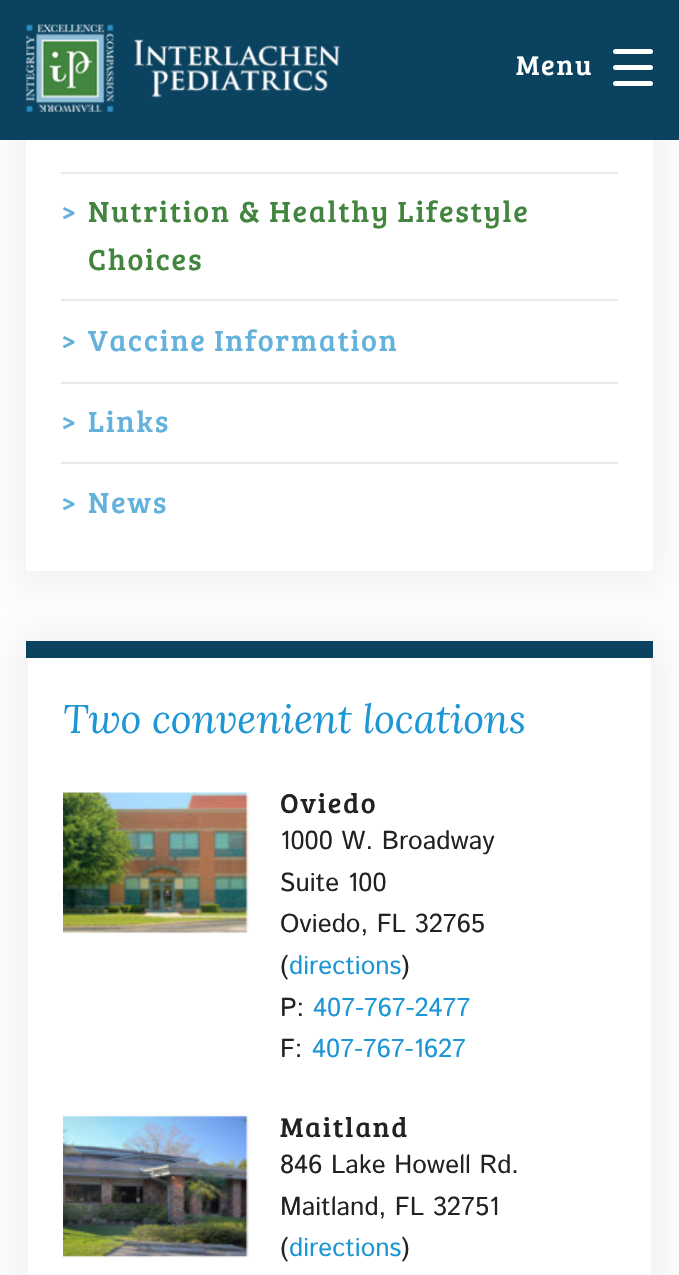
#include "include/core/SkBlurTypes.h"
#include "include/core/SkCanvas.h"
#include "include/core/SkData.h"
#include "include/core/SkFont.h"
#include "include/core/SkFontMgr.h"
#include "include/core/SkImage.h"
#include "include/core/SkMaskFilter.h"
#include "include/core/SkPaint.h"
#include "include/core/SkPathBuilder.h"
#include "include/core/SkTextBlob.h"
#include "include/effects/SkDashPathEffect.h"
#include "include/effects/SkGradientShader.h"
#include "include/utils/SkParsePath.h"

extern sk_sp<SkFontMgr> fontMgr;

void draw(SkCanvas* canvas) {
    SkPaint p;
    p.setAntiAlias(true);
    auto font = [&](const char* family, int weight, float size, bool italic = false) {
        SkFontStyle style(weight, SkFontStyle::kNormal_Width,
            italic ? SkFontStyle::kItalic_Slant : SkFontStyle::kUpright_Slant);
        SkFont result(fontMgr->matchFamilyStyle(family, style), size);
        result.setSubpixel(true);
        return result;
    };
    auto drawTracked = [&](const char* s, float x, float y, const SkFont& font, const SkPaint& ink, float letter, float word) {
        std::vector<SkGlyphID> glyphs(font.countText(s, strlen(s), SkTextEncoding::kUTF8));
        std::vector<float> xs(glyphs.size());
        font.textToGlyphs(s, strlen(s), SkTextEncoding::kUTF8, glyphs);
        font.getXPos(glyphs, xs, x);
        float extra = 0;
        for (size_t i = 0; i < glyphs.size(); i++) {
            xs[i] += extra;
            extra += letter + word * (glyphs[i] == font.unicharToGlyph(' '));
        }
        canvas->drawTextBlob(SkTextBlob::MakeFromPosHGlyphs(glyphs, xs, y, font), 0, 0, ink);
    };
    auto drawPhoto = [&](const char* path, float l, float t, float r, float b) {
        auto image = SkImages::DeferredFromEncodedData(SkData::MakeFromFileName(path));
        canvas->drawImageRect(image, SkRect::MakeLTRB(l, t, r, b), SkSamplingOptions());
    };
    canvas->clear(0xFFFFFFFF);
    p.setColor(0x0D000000);
    p.setMaskFilter(SkMaskFilter::MakeBlur(kNormal_SkBlurStyle, 17.5f));
    canvas->drawRect(SkRect::MakeLTRB(14, -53, 665, 588), p);
    p.setMaskFilter(nullptr);
    p.setColor(0xFF0A425F);
    canvas->drawRect(SkRect::MakeLTRB(0, 0, 679, 140), p);
    drawPhoto("media/1.png", 26, 24, 340, 112);
    p.setColor(0xFFFFFFFF);
    canvas->drawRoundRect(SkRect::MakeLTRB(613, 49, 653, 54), 2.5f, 2.5f, p);
    auto font1 = font("Bree Serif", 400, 28);
    drawTracked("Menu", 516, 75, font1, p, 1.75f, 0);
    canvas->drawRoundRect(SkRect::MakeLTRB(613, 65, 653, 70), 2.5f, 2.5f, p);
    canvas->drawRoundRect(SkRect::MakeLTRB(613, 81, 653, 86), 2.5f, 2.5f, p);
    {
        const struct { float l, t, r, b; SkColor color; } items[] = {
            {26, 140, 653, 571, 0xFFFFFFFF},
            {61, 172, 618, 174, 0xFFE9E9E9},
            {61, 299, 618, 301, 0xFFE9E9E9},
        };
        for (auto [l, t, r, b, color] : items) {
            p.setColor(color);
            canvas->drawRect(SkRect::MakeLTRB(l, t, r, b), p);
        }
    }
    p.setColor(0xFF63B2DC);
    drawTracked(">", 61, 222, font1, p, 1.75f, 0);
    auto font2 = font("Bree Serif", 400, 30);
    p.setColor(0xFF42853E);
    drawTracked("Nutrition & Healthy Lifestyle", 88, 222, font2, p, 1.75f, 0);
    drawTracked("Choices", 88, 270, font2, p, 1.75f, 0);
    p.setColor(0xFFE9E9E9);
    canvas->drawRect(SkRect::MakeLTRB(61, 382, 618, 384), p);
    p.setColor(0xFF63B2DC);
    drawTracked(">", 61, 351, font1, p, 1.75f, 0);
    drawTracked("Vaccine Information", 88, 351, font2, p, 1.75f, 0);
    p.setColor(0xFFE9E9E9);
    canvas->drawRect(SkRect::MakeLTRB(61, 462, 618, 464), p);
    p.setColor(0xFF63B2DC);
    drawTracked(">", 61, 432, font1, p, 1.75f, 0);
    drawTracked("Links", 88, 432, font2, p, 1.75f, 0);
    drawTracked(">", 61, 513, font1, p, 1.75f, 0);
    drawTracked("News", 88, 513, font2, p, 1.75f, 0);
    p.setColor(0x0D000000);
    p.setMaskFilter(SkMaskFilter::MakeBlur(kNormal_SkBlurStyle, 17.5f));
    canvas->drawRect(SkRect::MakeLTRB(14, 634, 665, 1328), p);
    p.setMaskFilter(nullptr);
    p.setColor(0xFFFFFFFF);
    canvas->drawRect(SkRect::MakeLTRB(28, 658, 651, 1275), p);
    p.setColor(0xFF0A425F);
    canvas->drawRect(SkRect::MakeLTRB(26, 641, 653, 658), p);
    auto font3 = font("Lora", 400, 40, true);
    p.setColor(0xFF1C96D4);
    canvas->drawString("Two convenient locations", 63, 733, font3, p);
    drawPhoto("media/2.png", 63, 792, 249, 934);
    p.setColor(0xFF222222);
    drawTracked("Oviedo", 280, 813, font1, p, 1.75f, 0);
    auto font4 = font("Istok", 400, 26);
    {
        const struct { const char* s; float x, y; } items[] = {
            {"1000 W. Broadway", 280, 849},
            {"Suite 100", 280, 891},
            {"Oviedo, FL 32765", 280, 932},
            {"(", 280, 974},
        };
        for (auto [s, x, y] : items) {
            canvas->drawString(s, x, y, font4, p);
        }
    }
    p.setColor(0xFF1C96D4);
    canvas->drawString("directions", 289, 974, font4, p);
    p.setColor(0xFF222222);
    canvas->drawString(")", 401, 974, font4, p);
    canvas->drawString("P:", 280, 1016, font4, p);
    p.setColor(0xFF1C96D4);
    canvas->drawString("407-767-2477", 313, 1016, font4, p);
    p.setColor(0xFF222222);
    canvas->drawString("F:", 280, 1057, font4, p);
    p.setColor(0xFF1C96D4);
    canvas->drawString("407-767-1627", 312, 1057, font4, p);
    drawPhoto("media/3.png", 63, 1115, 249, 1258);
    p.setColor(0xFF222222);
    drawTracked("Maitland", 280, 1137, font1, p, 1.75f, 0);
    {
        const struct { const char* s; float x, y; } items[] = {
            {"846 Lake Howell Rd.", 280, 1173},
            {"Maitland, FL 32751", 280, 1215},
            {"(", 280, 1256},
        };
        for (auto [s, x, y] : items) {
            canvas->drawString(s, x, y, font4, p);
        }
    }
    p.setColor(0xFF1C96D4);
    canvas->drawString("directions", 289, 1256, font4, p);
    p.setColor(0xFF222222);
    canvas->drawString(")", 401, 1256, font4, p);
}
